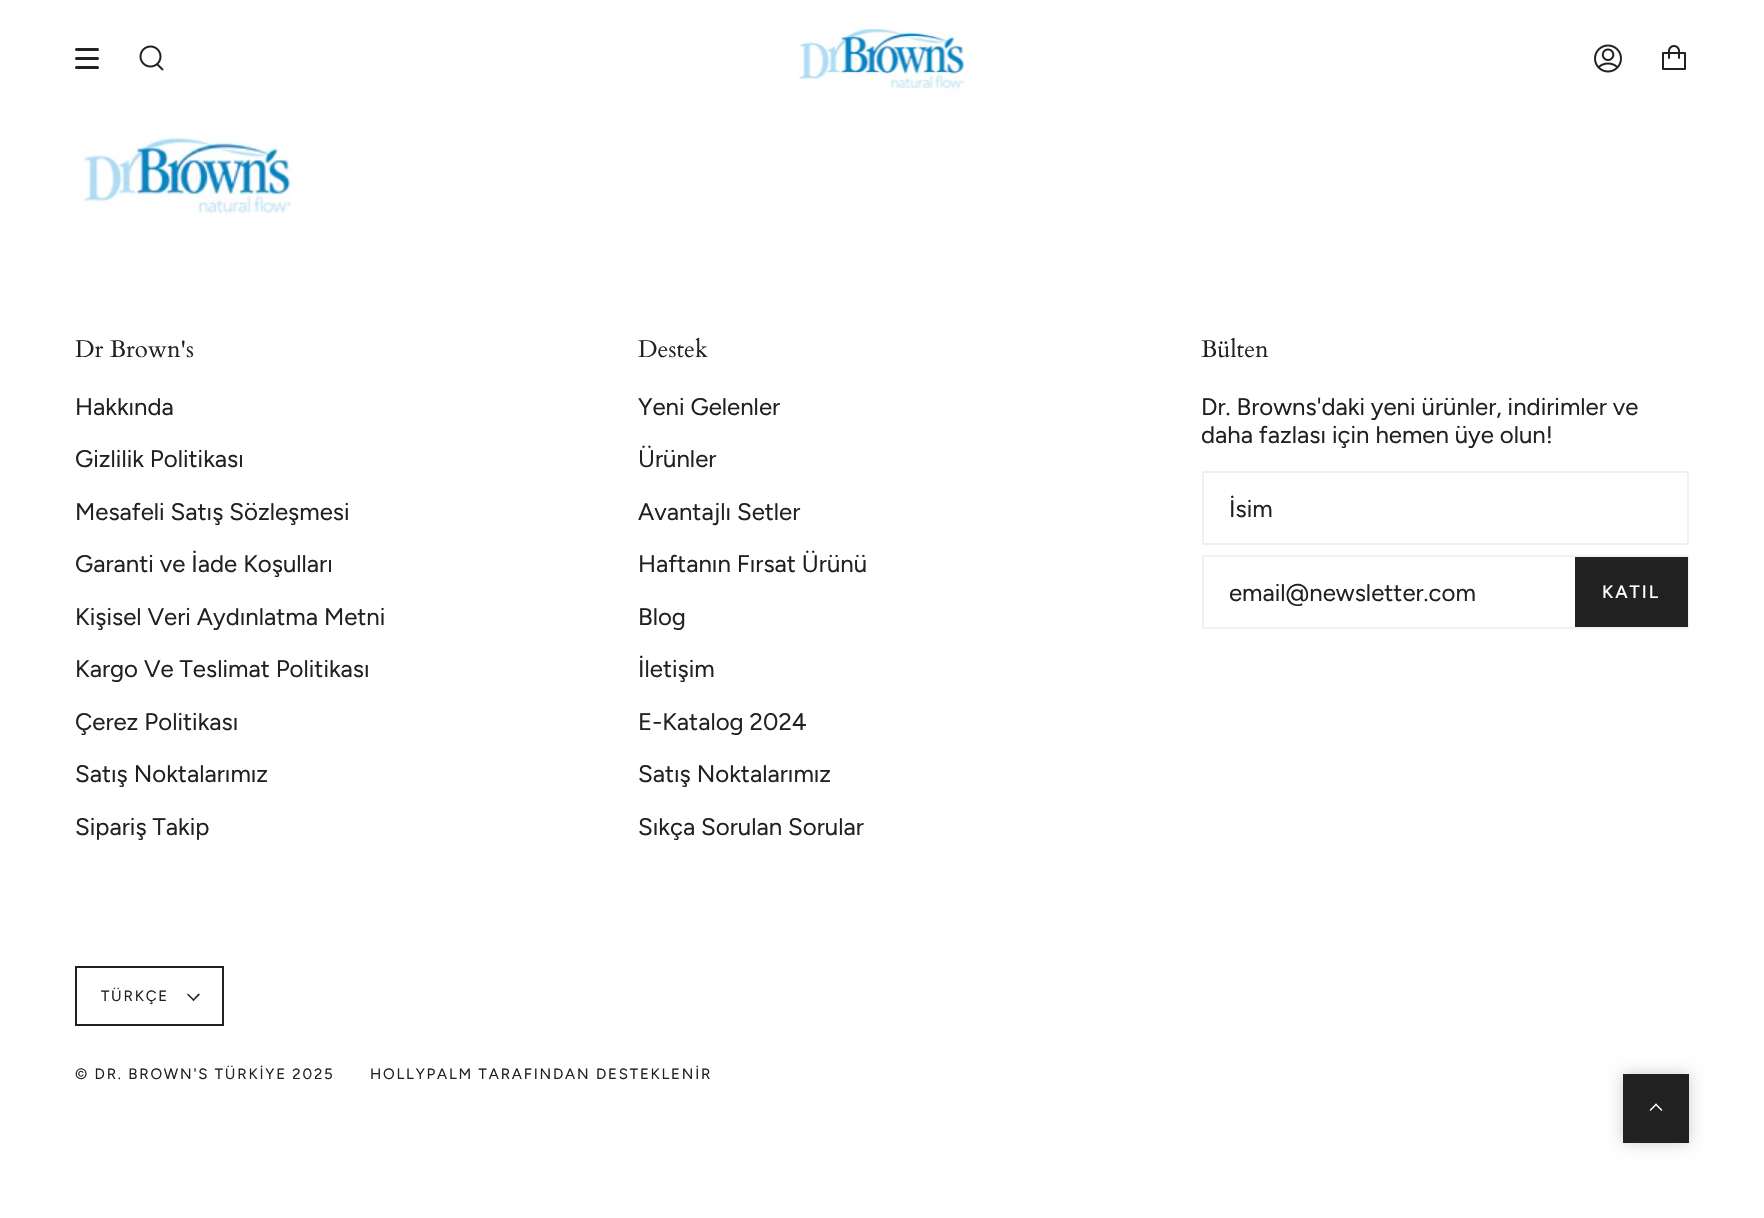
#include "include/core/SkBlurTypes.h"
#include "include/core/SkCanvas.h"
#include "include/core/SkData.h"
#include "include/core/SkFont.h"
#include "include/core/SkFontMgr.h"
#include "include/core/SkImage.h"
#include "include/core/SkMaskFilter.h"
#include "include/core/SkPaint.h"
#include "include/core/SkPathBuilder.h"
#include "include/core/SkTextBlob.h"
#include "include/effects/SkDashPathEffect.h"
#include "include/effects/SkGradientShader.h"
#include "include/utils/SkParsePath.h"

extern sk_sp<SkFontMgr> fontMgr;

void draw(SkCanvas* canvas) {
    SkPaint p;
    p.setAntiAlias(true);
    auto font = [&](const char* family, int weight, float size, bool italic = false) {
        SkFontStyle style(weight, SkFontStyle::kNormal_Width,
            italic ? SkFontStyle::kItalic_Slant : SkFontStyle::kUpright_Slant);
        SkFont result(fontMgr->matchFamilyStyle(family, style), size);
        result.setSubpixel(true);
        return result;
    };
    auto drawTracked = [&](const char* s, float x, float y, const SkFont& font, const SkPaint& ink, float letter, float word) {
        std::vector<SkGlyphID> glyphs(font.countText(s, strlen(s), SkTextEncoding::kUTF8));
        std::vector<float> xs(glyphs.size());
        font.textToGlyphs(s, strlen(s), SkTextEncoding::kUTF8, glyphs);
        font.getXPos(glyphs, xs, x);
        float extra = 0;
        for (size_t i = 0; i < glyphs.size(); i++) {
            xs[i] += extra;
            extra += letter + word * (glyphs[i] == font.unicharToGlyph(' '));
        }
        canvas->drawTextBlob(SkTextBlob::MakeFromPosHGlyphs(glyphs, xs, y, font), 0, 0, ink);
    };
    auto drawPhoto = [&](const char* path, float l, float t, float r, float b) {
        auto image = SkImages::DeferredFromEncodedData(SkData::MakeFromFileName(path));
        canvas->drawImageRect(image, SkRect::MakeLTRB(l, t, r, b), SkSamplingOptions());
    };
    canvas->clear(0xFFFFFFFF);
    p.setColor(0xFF212121);
    canvas->drawRoundRect(SkRect::MakeLTRB(75, 48, 99, 51), 1.5f, 1.5f, p);
    canvas->drawRoundRect(SkRect::MakeLTRB(75, 57, 99, 60), 1.5f, 1.5f, p);
    canvas->drawRoundRect(SkRect::MakeLTRB(75, 66, 99, 69), 1.5f, 1.5f, p);
    drawPhoto("media/1.png", 139, 45, 164, 71);
    drawPhoto("media/2.png", 799, 23, 965, 94);
    drawPhoto("media/3.png", 1594, 44, 1622, 73);
    drawPhoto("media/4.png", 1662, 45, 1686, 70);
    drawPhoto("media/5.png", 83, 137, 292, 215);
    auto font1 = font("Cardo", 400, 24);
    canvas->drawString("Dr Brown's", 75, 357, font1, p);
    auto font2 = font("Figtree", 400, 24);
    {
        const struct { const char* s; float x, y; } items[] = {
            {"Hakkında", 75, 415},
            {"Gizlilik Politikası", 75, 467},
            {"Mesafeli Satış Sözleşmesi", 75, 520},
            {"Garanti ve İade Koşulları", 75, 572},
            {"Kişisel Veri Aydınlatma Metni", 75, 625},
            {"Kargo Ve Teslimat Politikası", 75, 677},
            {"Çerez Politikası", 75, 730},
            {"Satış Noktalarımız", 75, 782},
            {"Sipariş Takip", 75, 835},
        };
        for (auto [s, x, y] : items) {
            canvas->drawString(s, x, y, font2, p);
        }
    }
    canvas->drawString("Destek", 638, 357, font1, p);
    {
        const struct { const char* s; float x, y; } items[] = {
            {"Yeni Gelenler", 638, 415},
            {"Ürünler", 638, 467},
            {"Avantajlı Setler", 638, 520},
            {"Haftanın Fırsat Ürünü", 638, 572},
            {"Blog", 638, 625},
            {"İletişim", 638, 677},
            {"E-Katalog 2024", 638, 730},
            {"Satış Noktalarımız", 638, 782},
            {"Sıkça Sorulan Sorular", 638, 835},
        };
        for (auto [s, x, y] : items) {
            canvas->drawString(s, x, y, font2, p);
        }
    }
    canvas->drawString("Bülten", 1201, 357, font1, p);
    canvas->drawString("Dr. Browns'daki yeni ürünler, indirimler ve", 1201, 415, font2, p);
    canvas->drawString("daha fazlası için hemen üye olun!", 1201, 443, font2, p);
    p.setStyle(SkPaint::kStroke_Style);
    p.setStrokeWidth(2);
    p.setColor(0xFFF0F0F0);
    canvas->drawRect(SkRect::MakeLTRB(1203, 472, 1688, 544), p);
    p.setStyle(SkPaint::kFill_Style);
    p.setColor(0xFF212121);
    canvas->drawString("İsim", 1229, 517, font2, p);
    p.setStyle(SkPaint::kStroke_Style);
    p.setColor(0xFFF0F0F0);
    canvas->drawRect(SkRect::MakeLTRB(1203, 556, 1688, 628), p);
    p.setStyle(SkPaint::kFill_Style);
    p.setColor(0xFF212121);
    canvas->drawString("email@newsletter.com", 1229, 601, font2, p);
    canvas->drawRect(SkRect::MakeLTRB(1575, 557, 1688, 627), p);
    auto font3 = font("Figtree", 500, 18);
    p.setColor(0xFFFFFFFF);
    drawTracked("KATIL", 1602, 598, font3, p, 2, 0);
    p.setStyle(SkPaint::kStroke_Style);
    p.setColor(0xFF212121);
    canvas->drawRect(SkRect::MakeLTRB(76, 967, 223, 1025), p);
    auto font4 = font("Figtree", 400, 15);
    p.setStyle(SkPaint::kFill_Style);
    drawTracked("TÜRKÇE", 101, 1001, font4, p, 1.8f, 0);
    canvas->drawPath(SkPathBuilder().moveTo(192.5f, 1000).lineTo(198.5f, 993.5f).lineTo(200, 994.5f).lineTo(193.5f, 1001).close().detach(), p);
    canvas->drawPath(SkPathBuilder().moveTo(187, 994.5f).lineTo(188, 993.5f).lineTo(194.5f, 1000).lineTo(193.5f, 1001).close().detach(), p);
    drawTracked("© DR. BROWN'S TÜRKİYE 2025", 75, 1079, font4, p, 1.8f, 0);
    drawTracked("HOLLYPALM TARAFINDAN DESTEKLENİR", 370, 1079, font4, p, 1.8f, 0);
    p.setColor(0x33000000);
    p.setMaskFilter(SkMaskFilter::MakeBlur(kNormal_SkBlurStyle, 7.5f));
    canvas->drawRect(SkRect::MakeLTRB(1623, 1074, 1689, 1143), p);
    p.setMaskFilter(nullptr);
    p.setColor(0xFF212121);
    canvas->drawRect(SkRect::MakeLTRB(1623, 1074, 1689, 1143), p);
    p.setColor(0xFFFFFFFF);
    canvas->drawPath(SkPathBuilder().moveTo(1657, 1104.5f).lineTo(1650.5f, 1111).lineTo(1649.5f, 1110).lineTo(1656, 1103.5f).close().detach(), p);
    canvas->drawPath(SkPathBuilder().moveTo(1662.5f, 1110).lineTo(1661.5f, 1111).lineTo(1655, 1104.5f).lineTo(1656, 1103.5f).close().detach(), p);
}
